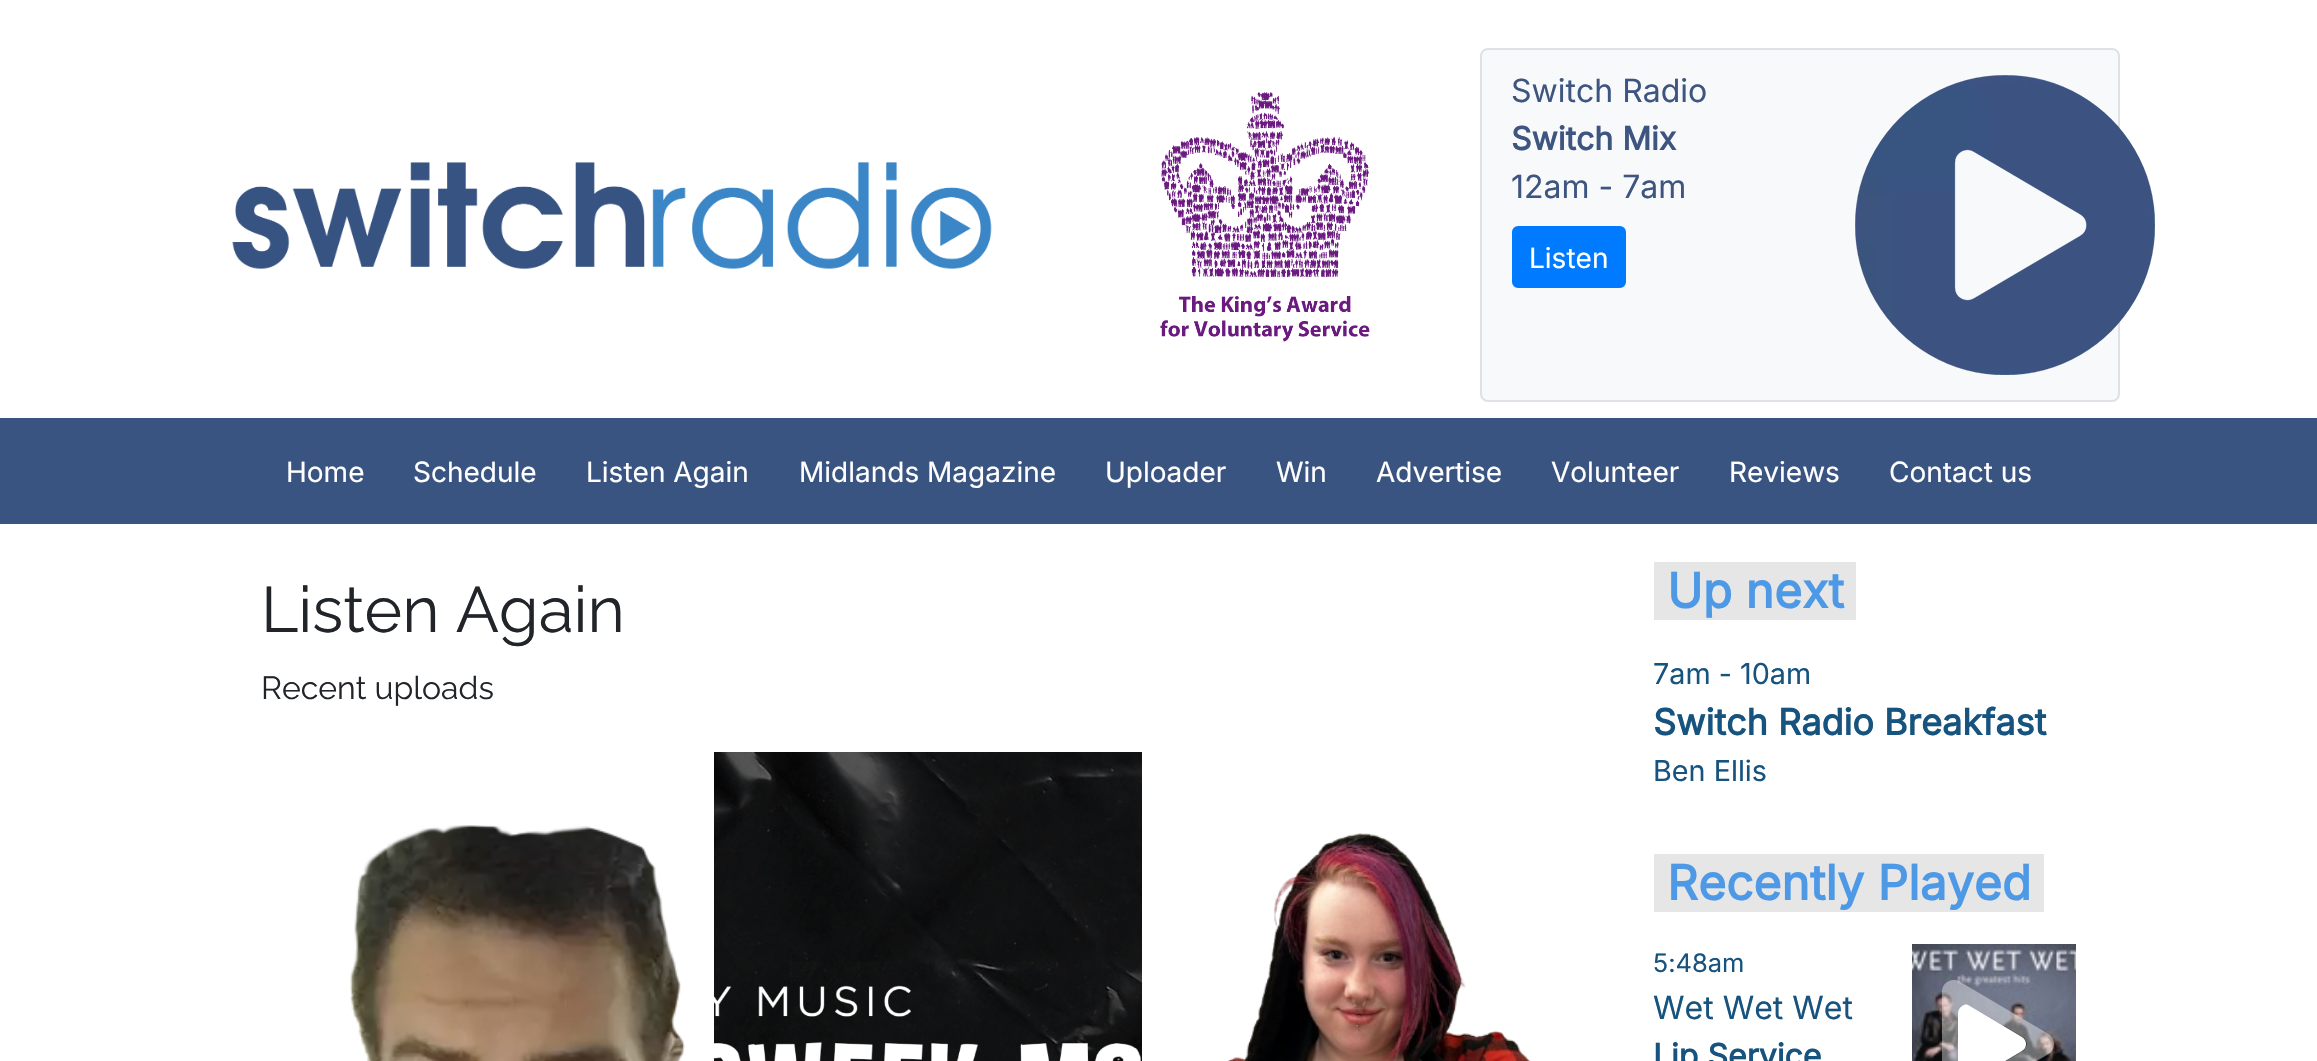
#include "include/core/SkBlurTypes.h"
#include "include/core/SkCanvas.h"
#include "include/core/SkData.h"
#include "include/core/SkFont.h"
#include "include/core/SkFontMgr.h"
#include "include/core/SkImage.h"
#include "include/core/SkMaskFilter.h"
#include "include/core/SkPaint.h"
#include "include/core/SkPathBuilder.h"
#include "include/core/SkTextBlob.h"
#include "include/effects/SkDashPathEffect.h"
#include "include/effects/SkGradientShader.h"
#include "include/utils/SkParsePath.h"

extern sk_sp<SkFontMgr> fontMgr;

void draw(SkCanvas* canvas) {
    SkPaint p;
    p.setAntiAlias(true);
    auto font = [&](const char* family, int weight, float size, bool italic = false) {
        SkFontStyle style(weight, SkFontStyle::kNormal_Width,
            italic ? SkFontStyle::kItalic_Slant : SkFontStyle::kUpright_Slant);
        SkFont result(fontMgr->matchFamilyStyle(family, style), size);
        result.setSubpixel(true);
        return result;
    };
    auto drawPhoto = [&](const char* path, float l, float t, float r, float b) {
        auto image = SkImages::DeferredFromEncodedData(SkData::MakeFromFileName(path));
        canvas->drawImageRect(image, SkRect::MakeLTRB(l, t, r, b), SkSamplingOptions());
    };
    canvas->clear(0xFFFFFFFF);
    drawPhoto("media/1.png", 232, 162, 992, 270);
    drawPhoto("media/2.png", 1160, 92, 1370, 342);
    p.setColor(0xFFF8F9FA);
    canvas->drawRoundRect(SkRect::MakeLTRB(1481, 49, 2119, 401), 7, 7, p);
    p.setStyle(SkPaint::kStroke_Style);
    p.setStrokeWidth(2);
    p.setColor(0xFFDEE2E6);
    canvas->drawRoundRect(SkRect::MakeLTRB(1481, 49, 2119, 401), 7, 7, p);
    auto font1 = font("Inter", 400, 32);
    p.setStyle(SkPaint::kFill_Style);
    p.setColor(0xFF3D5580);
    canvas->drawString("Switch Radio", 1511, 102, font1, p);
    auto font2 = font("Inter", 700, 32);
    canvas->drawString("Switch Mix", 1511, 150, font2, p);
    canvas->drawString("12am - 7am", 1511, 198, font1, p);
    p.setColor(0xFF007BFF);
    canvas->drawRoundRect(SkRect::MakeLTRB(1513, 227, 1625, 287), 5, 5, p);
    p.setStyle(SkPaint::kStroke_Style);
    canvas->drawRoundRect(SkRect::MakeLTRB(1513, 227, 1625, 287), 5, 5, p);
    auto font3 = font("Inter", 400, 28);
    p.setStyle(SkPaint::kFill_Style);
    p.setColor(0xFFFFFFFF);
    canvas->drawString("Listen", 1529, 268, font3, p);
    drawPhoto("media/3.png", 1855, 75, 2155, 375);
    p.setColor(0xFF3A5481);
    canvas->drawRect(SkRect::MakeLTRB(0, 418, 2317, 524), p);
    p.setColor(0xFFFFFFFF);
    {
        const struct { const char* s; float x, y; } items[] = {
            {"Home", 286, 482},
            {"Schedule", 413, 482},
            {"Listen Again", 586, 482},
            {"Midlands Magazine", 799, 482},
            {"Uploader", 1105, 482},
            {"Win", 1276, 482},
            {"Advertise", 1376, 482},
            {"Volunteer", 1551, 482},
            {"Reviews", 1729, 482},
            {"Contact us", 1889, 482},
        };
        for (auto [s, x, y] : items) {
            canvas->drawString(s, x, y, font3, p);
        }
    }
    auto font4 = font("Raleway", 100, 64);
    p.setColor(0xFF212529);
    canvas->drawString("Listen Again", 261, 632, font4, p);
    auto font5 = font("Raleway", 100, 32);
    canvas->drawString("Recent uploads", 261, 699, font5, p);
    drawPhoto("media/4.png", 350, 825, 685, 1061);
    drawPhoto("media/5.png", 714, 752, 1142, 1061);
    drawPhoto("media/6.png", 1228, 833, 1531, 1061);
    p.setColor(0xFFE6E6E6);
    canvas->drawRect(SkRect::MakeLTRB(1654, 562, 1856, 620), p);
    auto font6 = font("Inter", 700, 48);
    p.setColor(0xFF4D99E6);
    canvas->drawString("Up next", 1667, 608, font6, p);
    auto font7 = font("Inter", 400, 28.75f);
    p.setColor(0xFF16537E);
    canvas->drawString("7am - 10am", 1653, 684, font7, p);
    auto font8 = font("Inter", 700, 36);
    canvas->drawString("Switch Radio Breakfast", 1653, 735, font8, p);
    canvas->drawString("Ben Ellis", 1653, 781, font7, p);
    p.setColor(0xFFE6E6E6);
    canvas->drawRect(SkRect::MakeLTRB(1654, 854, 2044, 912), p);
    p.setColor(0xFF4D99E6);
    canvas->drawString("Recently Played", 1667, 900, font6, p);
    auto font9 = font("Inter", 400, 25.5f);
    p.setColor(0xFF16537E);
    canvas->drawString("5:48am", 1653, 972, font9, p);
    canvas->drawString("Wet Wet Wet", 1653, 1019, font1, p);
    canvas->drawString("Lip Service", 1653, 1067, font2, p);
    drawPhoto("media/7.png", 1912, 944, 2076, 1061);
    p.setColor(0xFFFFFFFF);
    canvas->drawPath(SkPathBuilder().moveTo(1970, 1006).lineTo(2022, 1037).cubicTo(2025, 1039, 2026, 1041, 2026, 1044).cubicTo(2026, 1047, 2025, 1049, 2022, 1051).lineTo(1970, 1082).cubicTo(1967, 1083, 1965, 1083, 1962, 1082).cubicTo(1959, 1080, 1958, 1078, 1958, 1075).lineTo(1958, 1013).cubicTo(1958, 1010, 1959, 1008, 1962, 1006).cubicTo(1965, 1004, 1967, 1004, 1970, 1006).close().detach(), p);
    drawPhoto("media/8.png", 1942, 979, 2054, 1061);
}
